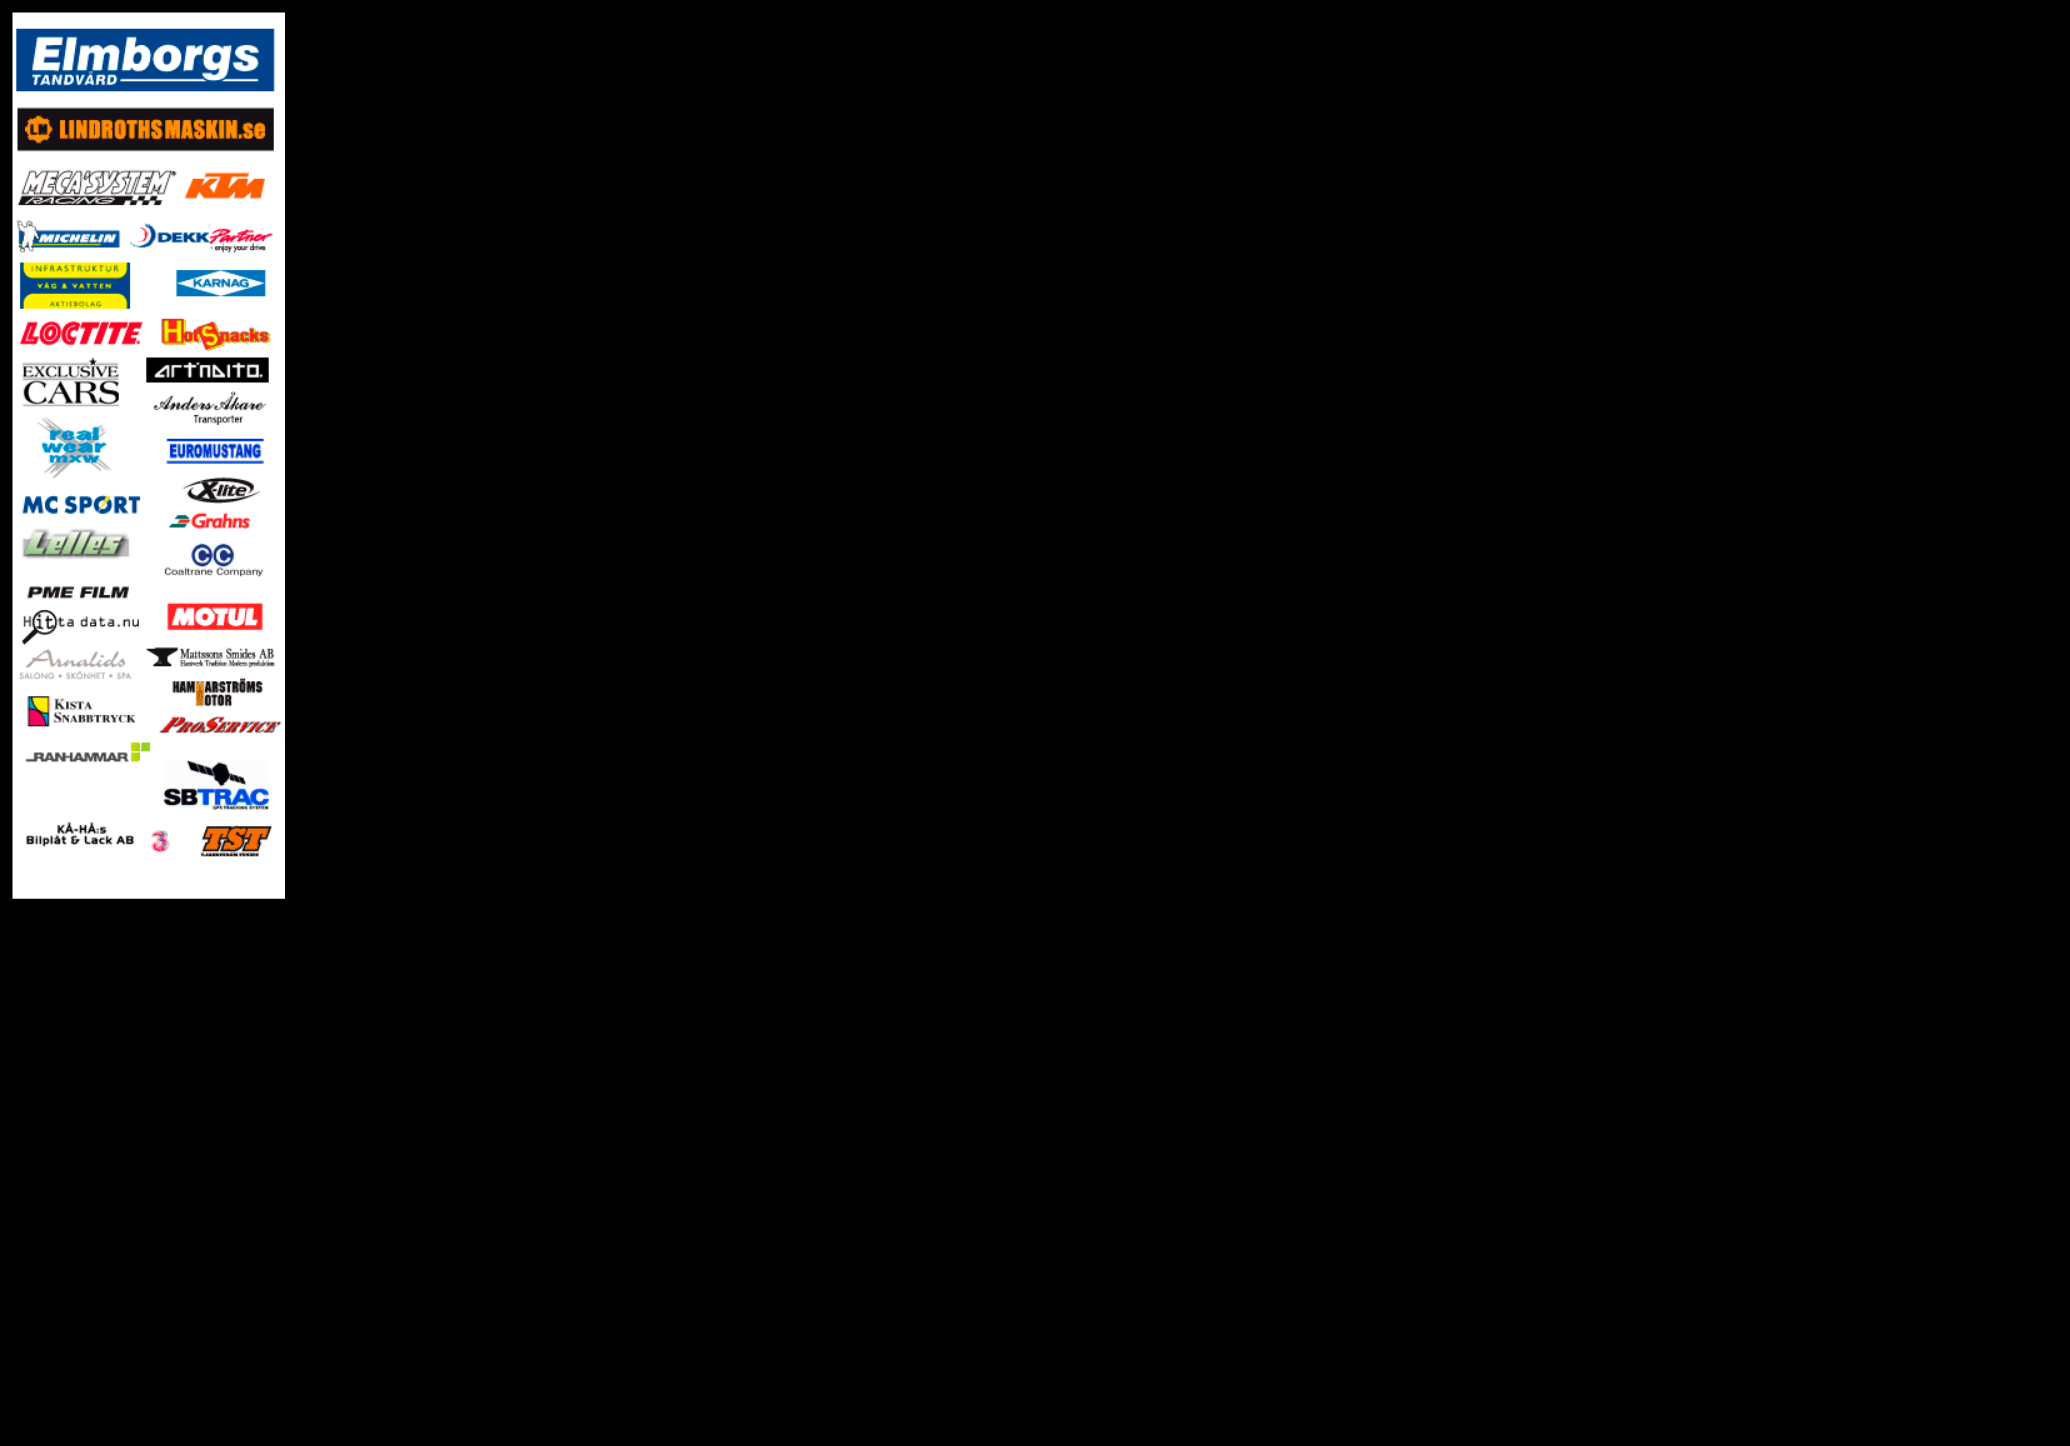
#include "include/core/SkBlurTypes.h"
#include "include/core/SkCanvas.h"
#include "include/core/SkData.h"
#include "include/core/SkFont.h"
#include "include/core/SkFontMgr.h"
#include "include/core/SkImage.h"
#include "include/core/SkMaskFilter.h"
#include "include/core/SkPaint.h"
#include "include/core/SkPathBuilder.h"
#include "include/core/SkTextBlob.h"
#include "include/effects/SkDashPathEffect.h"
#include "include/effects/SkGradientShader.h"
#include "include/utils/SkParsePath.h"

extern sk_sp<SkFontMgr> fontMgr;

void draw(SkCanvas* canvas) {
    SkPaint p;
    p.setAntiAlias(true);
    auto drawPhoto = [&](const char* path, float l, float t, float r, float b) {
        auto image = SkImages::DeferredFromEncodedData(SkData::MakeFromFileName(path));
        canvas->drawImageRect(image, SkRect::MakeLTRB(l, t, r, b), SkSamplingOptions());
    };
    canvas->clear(0xFF000000);
    drawPhoto("media/1.png", 12, 12, 285, 899);
}
